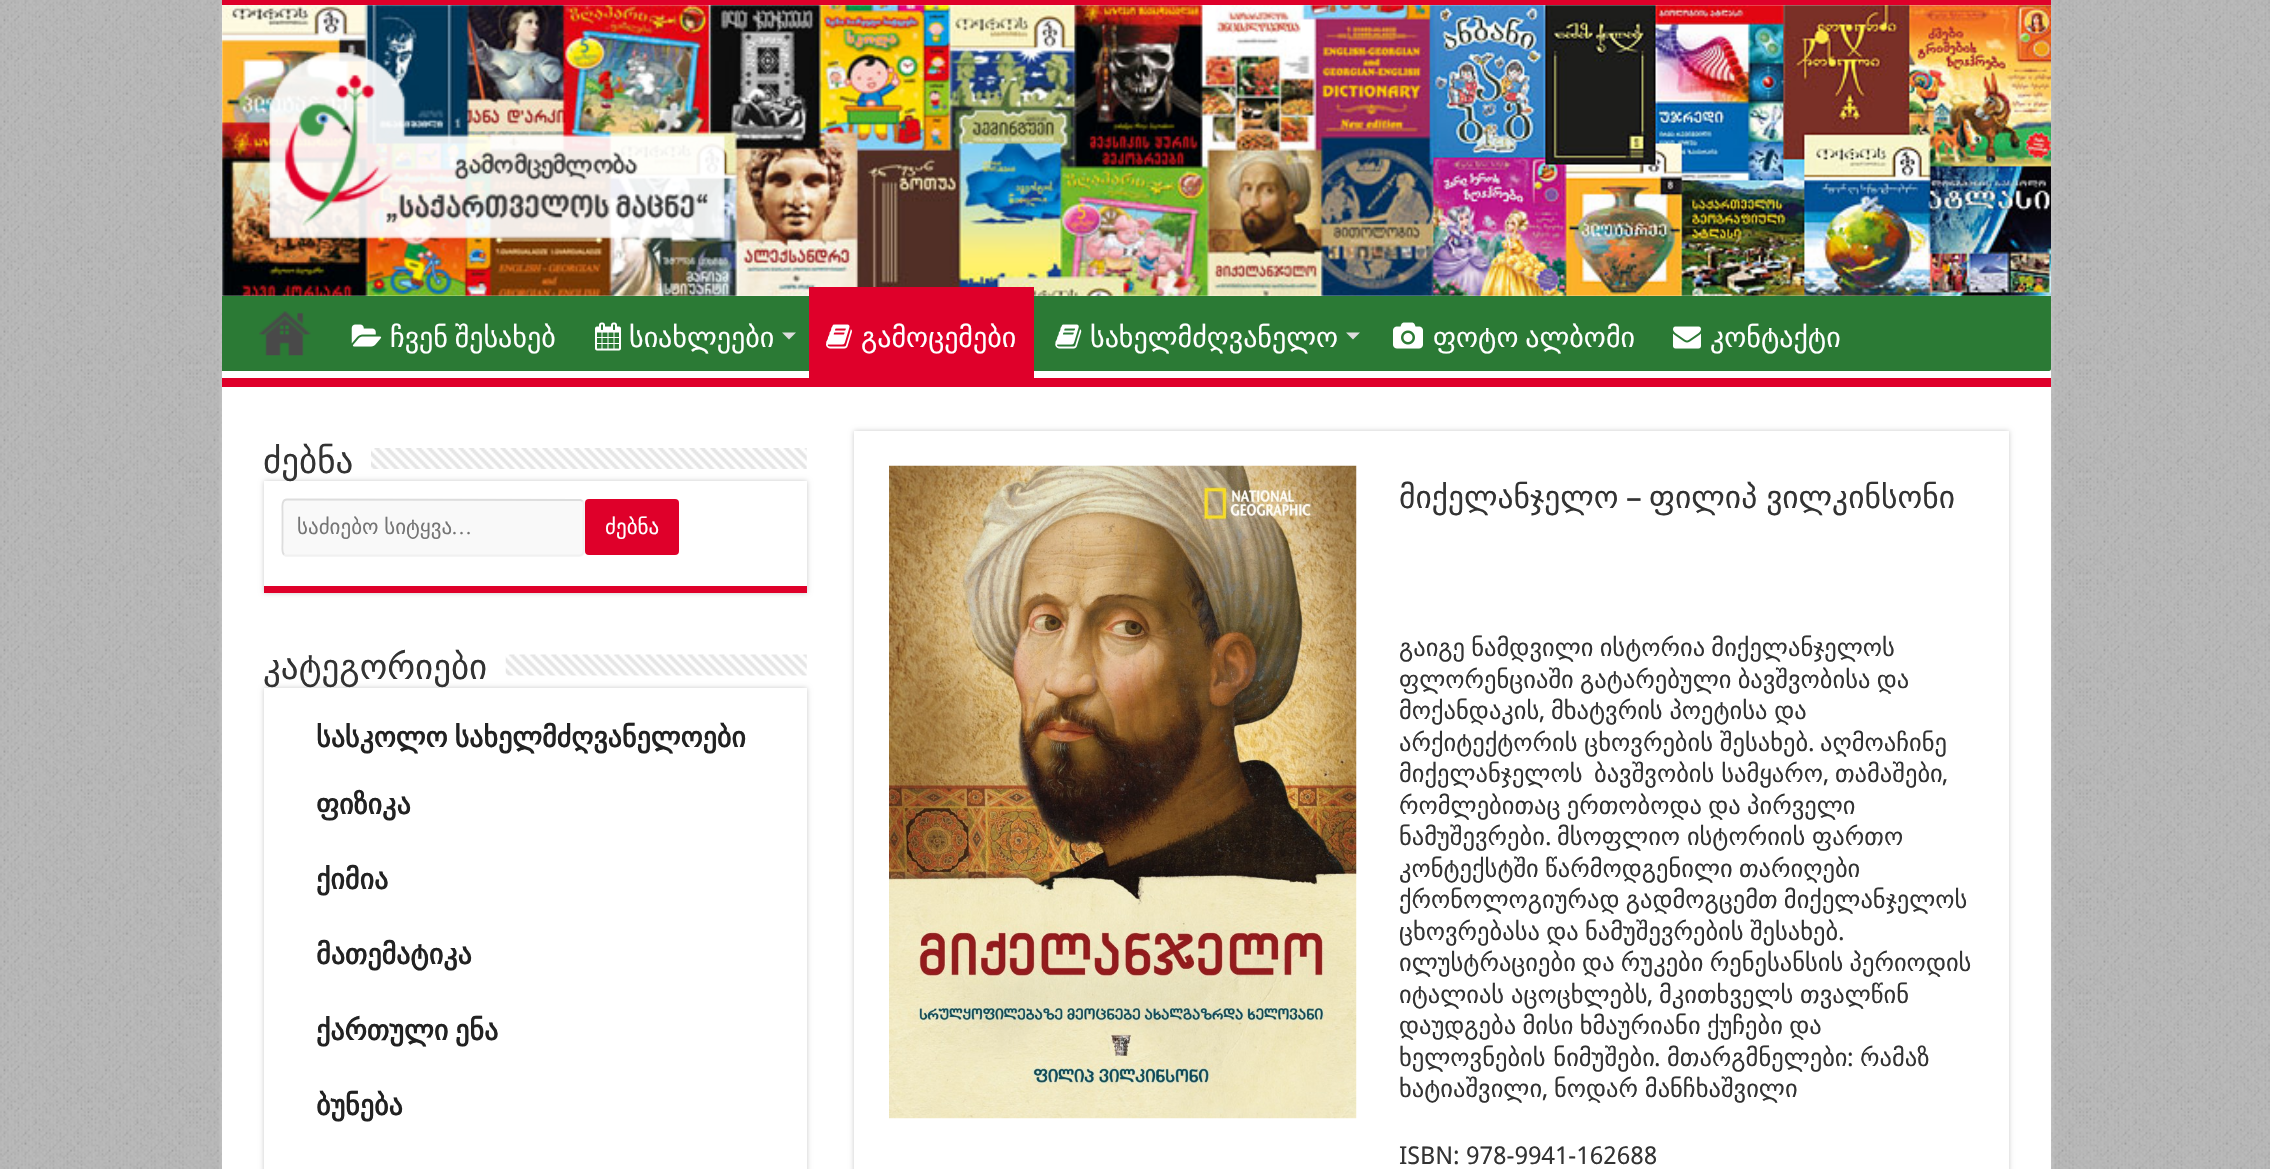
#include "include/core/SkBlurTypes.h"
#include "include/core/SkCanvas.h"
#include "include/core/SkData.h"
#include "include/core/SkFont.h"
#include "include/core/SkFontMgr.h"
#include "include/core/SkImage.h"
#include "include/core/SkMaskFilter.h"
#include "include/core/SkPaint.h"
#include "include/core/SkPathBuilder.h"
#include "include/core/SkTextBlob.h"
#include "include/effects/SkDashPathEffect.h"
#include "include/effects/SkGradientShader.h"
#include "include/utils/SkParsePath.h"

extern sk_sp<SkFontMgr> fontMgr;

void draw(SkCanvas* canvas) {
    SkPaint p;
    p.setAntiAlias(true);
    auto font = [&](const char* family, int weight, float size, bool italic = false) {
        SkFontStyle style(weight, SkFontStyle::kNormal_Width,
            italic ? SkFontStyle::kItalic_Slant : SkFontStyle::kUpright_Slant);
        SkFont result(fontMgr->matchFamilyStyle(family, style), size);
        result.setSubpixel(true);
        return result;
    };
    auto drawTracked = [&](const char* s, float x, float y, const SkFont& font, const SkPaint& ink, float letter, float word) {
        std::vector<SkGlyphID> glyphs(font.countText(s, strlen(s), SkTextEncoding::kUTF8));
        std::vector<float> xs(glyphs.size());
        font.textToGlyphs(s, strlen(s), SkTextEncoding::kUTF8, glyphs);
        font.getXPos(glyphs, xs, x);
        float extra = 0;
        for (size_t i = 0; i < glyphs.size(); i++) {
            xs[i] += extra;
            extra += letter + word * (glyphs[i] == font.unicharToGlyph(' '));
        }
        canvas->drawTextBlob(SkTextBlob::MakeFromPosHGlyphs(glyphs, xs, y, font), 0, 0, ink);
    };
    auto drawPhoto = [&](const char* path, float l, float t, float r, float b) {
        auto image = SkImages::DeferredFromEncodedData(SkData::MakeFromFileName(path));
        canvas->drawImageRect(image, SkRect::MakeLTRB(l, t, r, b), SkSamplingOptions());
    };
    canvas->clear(0xFFADADAD);
    drawPhoto("media/1.png", 0, 0, 2270, 1169);
    p.setColor(0xFFCACACA);
    p.setMaskFilter(SkMaskFilter::MakeBlur(kNormal_SkBlurStyle, 2.5f));
    canvas->drawRect(SkRect::MakeLTRB(222, 0, 2051, 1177), p);
    p.setMaskFilter(nullptr);
    p.setColor(0xFFFFFFFF);
    canvas->drawRect(SkRect::MakeLTRB(222, 5, 2051, 1169), p);
    p.setColor(0xFFDF002A);
    canvas->drawRect(SkRect::MakeLTRB(222, 0, 2051, 5), p);
    drawPhoto("media/2.png", 222, 5, 2051, 296);
    drawPhoto("media/3.png", 269, 52, 725, 239);
    p.setColor(0xFF2B7A35);
    canvas->drawRect(SkRect::MakeLTRB(222, 296, 2051, 371), p);
    canvas->save();
    canvas->clipRect(SkRect::MakeLTRB(222, 296, 2051, 378));
    p.setColor(0xFFFFFFFF);
    canvas->drawPath(SkPathBuilder(SkPathFillType::kEvenOdd).moveTo(49, 122).lineTo(2224, 122).lineTo(2224, 551).lineTo(49, 551).close().moveTo(220, 285).lineTo(2049, 285).cubicTo(2050, 285, 2051, 286, 2051, 287).lineTo(2051, 369).cubicTo(2051, 370, 2050, 371, 2049, 371).lineTo(220, 371).cubicTo(220, 371, 219, 370, 219, 369).lineTo(219, 287).cubicTo(219, 286, 220, 285, 220, 285).close().detach(), p);
    canvas->restore();
    p.setColor(0xFFDF002A);
    canvas->drawRect(SkRect::MakeLTRB(222, 378, 2051, 387), p);
    drawPhoto("media/4.png", 259, 311, 311, 356);
    drawPhoto("media/5.png", 351, 324, 382, 347);
    auto font1 = font("DejaVu Sans", 400, 28);
    p.setColor(0xFFFFFFFF);
    drawTracked("ჩვენ შესახებ", 390, 347, font1, p, 0, -2);
    drawPhoto("media/6.png", 595, 322, 621, 351);
    canvas->drawString("სიახლეები", 629, 347, font1, p);
    p.setColor(0xFFDDDDDD);
    canvas->drawPath(SkPathBuilder().moveTo(782, 332.5f).lineTo(796, 332.5f).lineTo(789, 339.5f).close().detach(), p);
    p.setColor(0xFFDF002A);
    canvas->drawRect(SkRect::MakeLTRB(809, 287, 1034, 378), p);
    drawPhoto("media/7.png", 826, 324, 852, 349);
    p.setColor(0xFFFFFFFF);
    canvas->drawString("გამოცემები", 861, 347, font1, p);
    drawPhoto("media/8.png", 1055, 324, 1082, 349);
    canvas->drawString("სახელმძღვანელო", 1090, 347, font1, p);
    p.setColor(0xFFDDDDDD);
    canvas->drawPath(SkPathBuilder().moveTo(1346, 332.5f).lineTo(1360, 332.5f).lineTo(1353, 339.5f).close().detach(), p);
    drawPhoto("media/9.png", 1393, 322, 1423, 349);
    p.setColor(0xFFFFFFFF);
    drawTracked("ფოტო ალბომი", 1433, 347, font1, p, 0, -2);
    drawPhoto("media/10.png", 1673, 326, 1701, 349);
    canvas->drawString("კონტაქტი", 1710, 347, font1, p);
    p.setColor(0xFFCACACA);
    p.setMaskFilter(SkMaskFilter::MakeBlur(kNormal_SkBlurStyle, 2.5f));
    canvas->drawRect(SkRect::MakeLTRB(264, 481, 807, 593), p);
    p.setMaskFilter(nullptr);
    p.setColor(0xFFFFFFFF);
    canvas->drawRect(SkRect::MakeLTRB(264, 481, 807, 586), p);
    auto font2 = font("DejaVu Sans", 400, 35);
    p.setColor(0xFF333333);
    canvas->drawString("ძებნა", 263, 473, font2, p);
    drawPhoto("media/11.png", 371, 448, 807, 469);
    p.setColor(0xFFDF002A);
    canvas->drawRect(SkRect::MakeLTRB(264, 586, 807, 593), p);
    p.setColor(0xFFF9F9F9);
    canvas->drawRoundRect(SkRect::MakeLTRB(282, 499, 585, 557), 5, 5, p);
    p.setStyle(SkPaint::kStroke_Style);
    p.setStrokeWidth(1.8f);
    p.setColor(0xFFF1F1F1);
    canvas->drawPath(SkPathBuilder().moveTo(582.5f, 501).cubicTo(585, 503.5f, 583.5f, 510, 583.5f, 512).lineTo(583.5f, 543.5f).cubicTo(583.5f, 546.5f, 585.5f, 555.5f, 579, 555.5f).lineTo(285.5f, 555.5f).lineTo(284, 554.5f).detach(), p);
    p.setColor(0xFFDDDDDD);
    canvas->drawPath(SkPathBuilder().moveTo(284, 554.5f).cubicTo(281.5f, 552, 282.5f, 545.5f, 282.5f, 543.5f).lineTo(282.5f, 512).cubicTo(282.5f, 508.5f, 281, 499.5f, 287, 499.5f).lineTo(580.5f, 500).lineTo(582.5f, 501).detach(), p);
    auto font3 = font("DejaVu Sans", 400, 21);
    p.setStyle(SkPaint::kFill_Style);
    p.setColor(0xFF757575);
    drawTracked("საძიებო სიტყვა", 297, 534, font3, p, 0, -1);
    auto font4 = font("Liberation Serif", 400, 21);
    canvas->drawString("…", 451, 534, font4, p);
    p.setColor(0xFFDF002A);
    canvas->drawRoundRect(SkRect::MakeLTRB(585, 499, 679, 555), 4, 4, p);
    p.setColor(0xFFFFFFFF);
    canvas->drawString("ძებნა", 605, 534, font3, p);
    p.setColor(0xFFCACACA);
    p.setMaskFilter(SkMaskFilter::MakeBlur(kNormal_SkBlurStyle, 2.5f));
    canvas->drawRect(SkRect::MakeLTRB(264, 688, 807, 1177), p);
    p.setMaskFilter(nullptr);
    p.setColor(0xFF333333);
    canvas->drawString("კატეგორიები", 263, 679, font2, p);
    drawPhoto("media/12.png", 505, 654, 807, 676);
    p.setColor(0xFFFFFFFF);
    canvas->drawRect(SkRect::MakeLTRB(264, 688, 807, 1169), p);
    auto font5 = font("DejaVu Sans", 700, 28);
    p.setColor(0xFF222222);
    drawTracked("სასკოლო სახელმძღვანელოები", 316, 747, font5, p, 0, -2);
    {
        const struct { const char* s; float x, y; } items[] = {
            {"ფიზიკა", 316, 814},
            {"ქიმია", 316, 889},
            {"მათემატიკა", 316, 964},
        };
        for (auto [s, x, y] : items) {
            canvas->drawString(s, x, y, font5, p);
        }
    }
    drawTracked("ქართული ენა", 316, 1040, font5, p, 0, -2);
    canvas->drawString("ბუნება", 316, 1115, font5, p);
    canvas->save();
    canvas->clipPath(SkPathBuilder(SkPathFillType::kEvenOdd).moveTo(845, 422).lineTo(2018, 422).lineTo(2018, 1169).lineTo(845, 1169).close().moveTo(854, 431).lineTo(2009, 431).lineTo(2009, 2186).lineTo(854, 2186).close().detach(), true);
    p.setColor(0xFFCACACA);
    p.setMaskFilter(SkMaskFilter::MakeBlur(kNormal_SkBlurStyle, 2.5f));
    canvas->drawRect(SkRect::MakeLTRB(854, 431, 2009, 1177), p);
    p.setMaskFilter(nullptr);
    canvas->restore();
    drawPhoto("media/13.png", 889, 465, 1357, 1119);
    auto font6 = font("DejaVu Sans", 400, 31.5f);
    p.setColor(0xFF333333);
    canvas->drawString("მიქელანჯელო", 1399, 508, font6, p);
    auto font7 = font("Droid Sans", 400, 31.5f);
    canvas->drawString("–", 1626, 508, font7, p);
    drawTracked("ფილიპ ვილკინსონი", 1649, 508, font6, p, 0, -1);
    auto font8 = font("DejaVu Sans", 400, 24.5f);
    drawTracked("გაიგე ნამდვილი ისტორია მიქელანჯელოს", 1399, 656, font8, p, 0, -1.5f);
    drawTracked("ფლორენციაში გატარებული ბავშვობისა და", 1399, 688, font8, p, 0, -1.5f);
    canvas->drawString("მოქანდაკის", 1399, 719, font8, p);
    auto font9 = font("Droid Sans", 400, 24.5f);
    canvas->drawString(",", 1539, 719, font9, p);
    drawTracked("მხატვრის პოეტისა და", 1551, 719, font8, p, 0, -1);
    drawTracked("არქიტექტორის ცხოვრების შესახებ", 1399, 751, font8, p, 0, -1);
    canvas->drawString(".", 1808, 751, font9, p);
    canvas->drawString("აღმოაჩინე", 1820, 751, font8, p);
    canvas->drawString("მიქელანჯელოს", 1399, 782, font8, p);
    drawTracked("ბავშვობის სამყარო", 1594, 782, font8, p, 0, -1);
    canvas->drawString(",", 1823, 782, font9, p);
    canvas->drawString("თამაშები", 1835, 782, font8, p);
    canvas->drawString(",", 1942, 782, font9, p);
    drawTracked("რომლებითაც ერთობოდა და პირველი", 1399, 814, font8, p, 0, -1.5f);
    canvas->drawString("ნამუშევრები", 1399, 845, font8, p);
    canvas->drawString(".", 1545, 845, font9, p);
    drawTracked("მსოფლიო ისტორიის ფართო", 1557, 845, font8, p, 0, -1);
    {
        const struct { const char* s; float x, y; } items[] = {
            {"კონტექსტში წარმოდგენილი თარიღები", 1399, 877},
            {"ქრონოლოგიურად გადმოგცემთ მიქელანჯელოს", 1399, 908},
            {"ცხოვრებასა და ნამუშევრების შესახებ", 1399, 940},
        };
        for (auto [s, x, y] : items) {
            drawTracked(s, x, y, font8, p, 0, -1.5f);
        }
    }
    canvas->drawString(".", 1838, 940, font9, p);
    drawTracked("ილუსტრაციები და რუკები რენესანსის პერიოდის", 1399, 971, font8, p, 0, -1.5f);
    drawTracked("იტალიას აცოცხლებს", 1399, 1003, font8, p, 0, -1);
    canvas->drawString(",", 1647, 1003, font9, p);
    drawTracked("მკითხველს თვალწინ", 1659, 1003, font8, p, 0, -1);
    drawTracked("დაუდგება მისი ხმაურიანი ქუჩები და", 1399, 1034, font8, p, 0, -1.5f);
    canvas->drawString("ხელოვნების ნიმუშები", 1399, 1066, font8, p);
    canvas->drawString(".", 1654, 1066, font9, p);
    canvas->drawString("მთარგმნელები", 1667, 1066, font8, p);
    canvas->drawString(":", 1847, 1066, font9, p);
    canvas->drawString("რამაზ", 1860, 1066, font8, p);
    canvas->drawString("ხატიაშვილი", 1399, 1097, font8, p);
    canvas->drawString(",", 1542, 1097, font9, p);
    drawTracked("ნოდარ მანჩხაშვილი", 1554, 1097, font8, p, 0, -1);
    canvas->drawString("ISBN: 978-9941-162688", 1399, 1164, font9, p);
}
